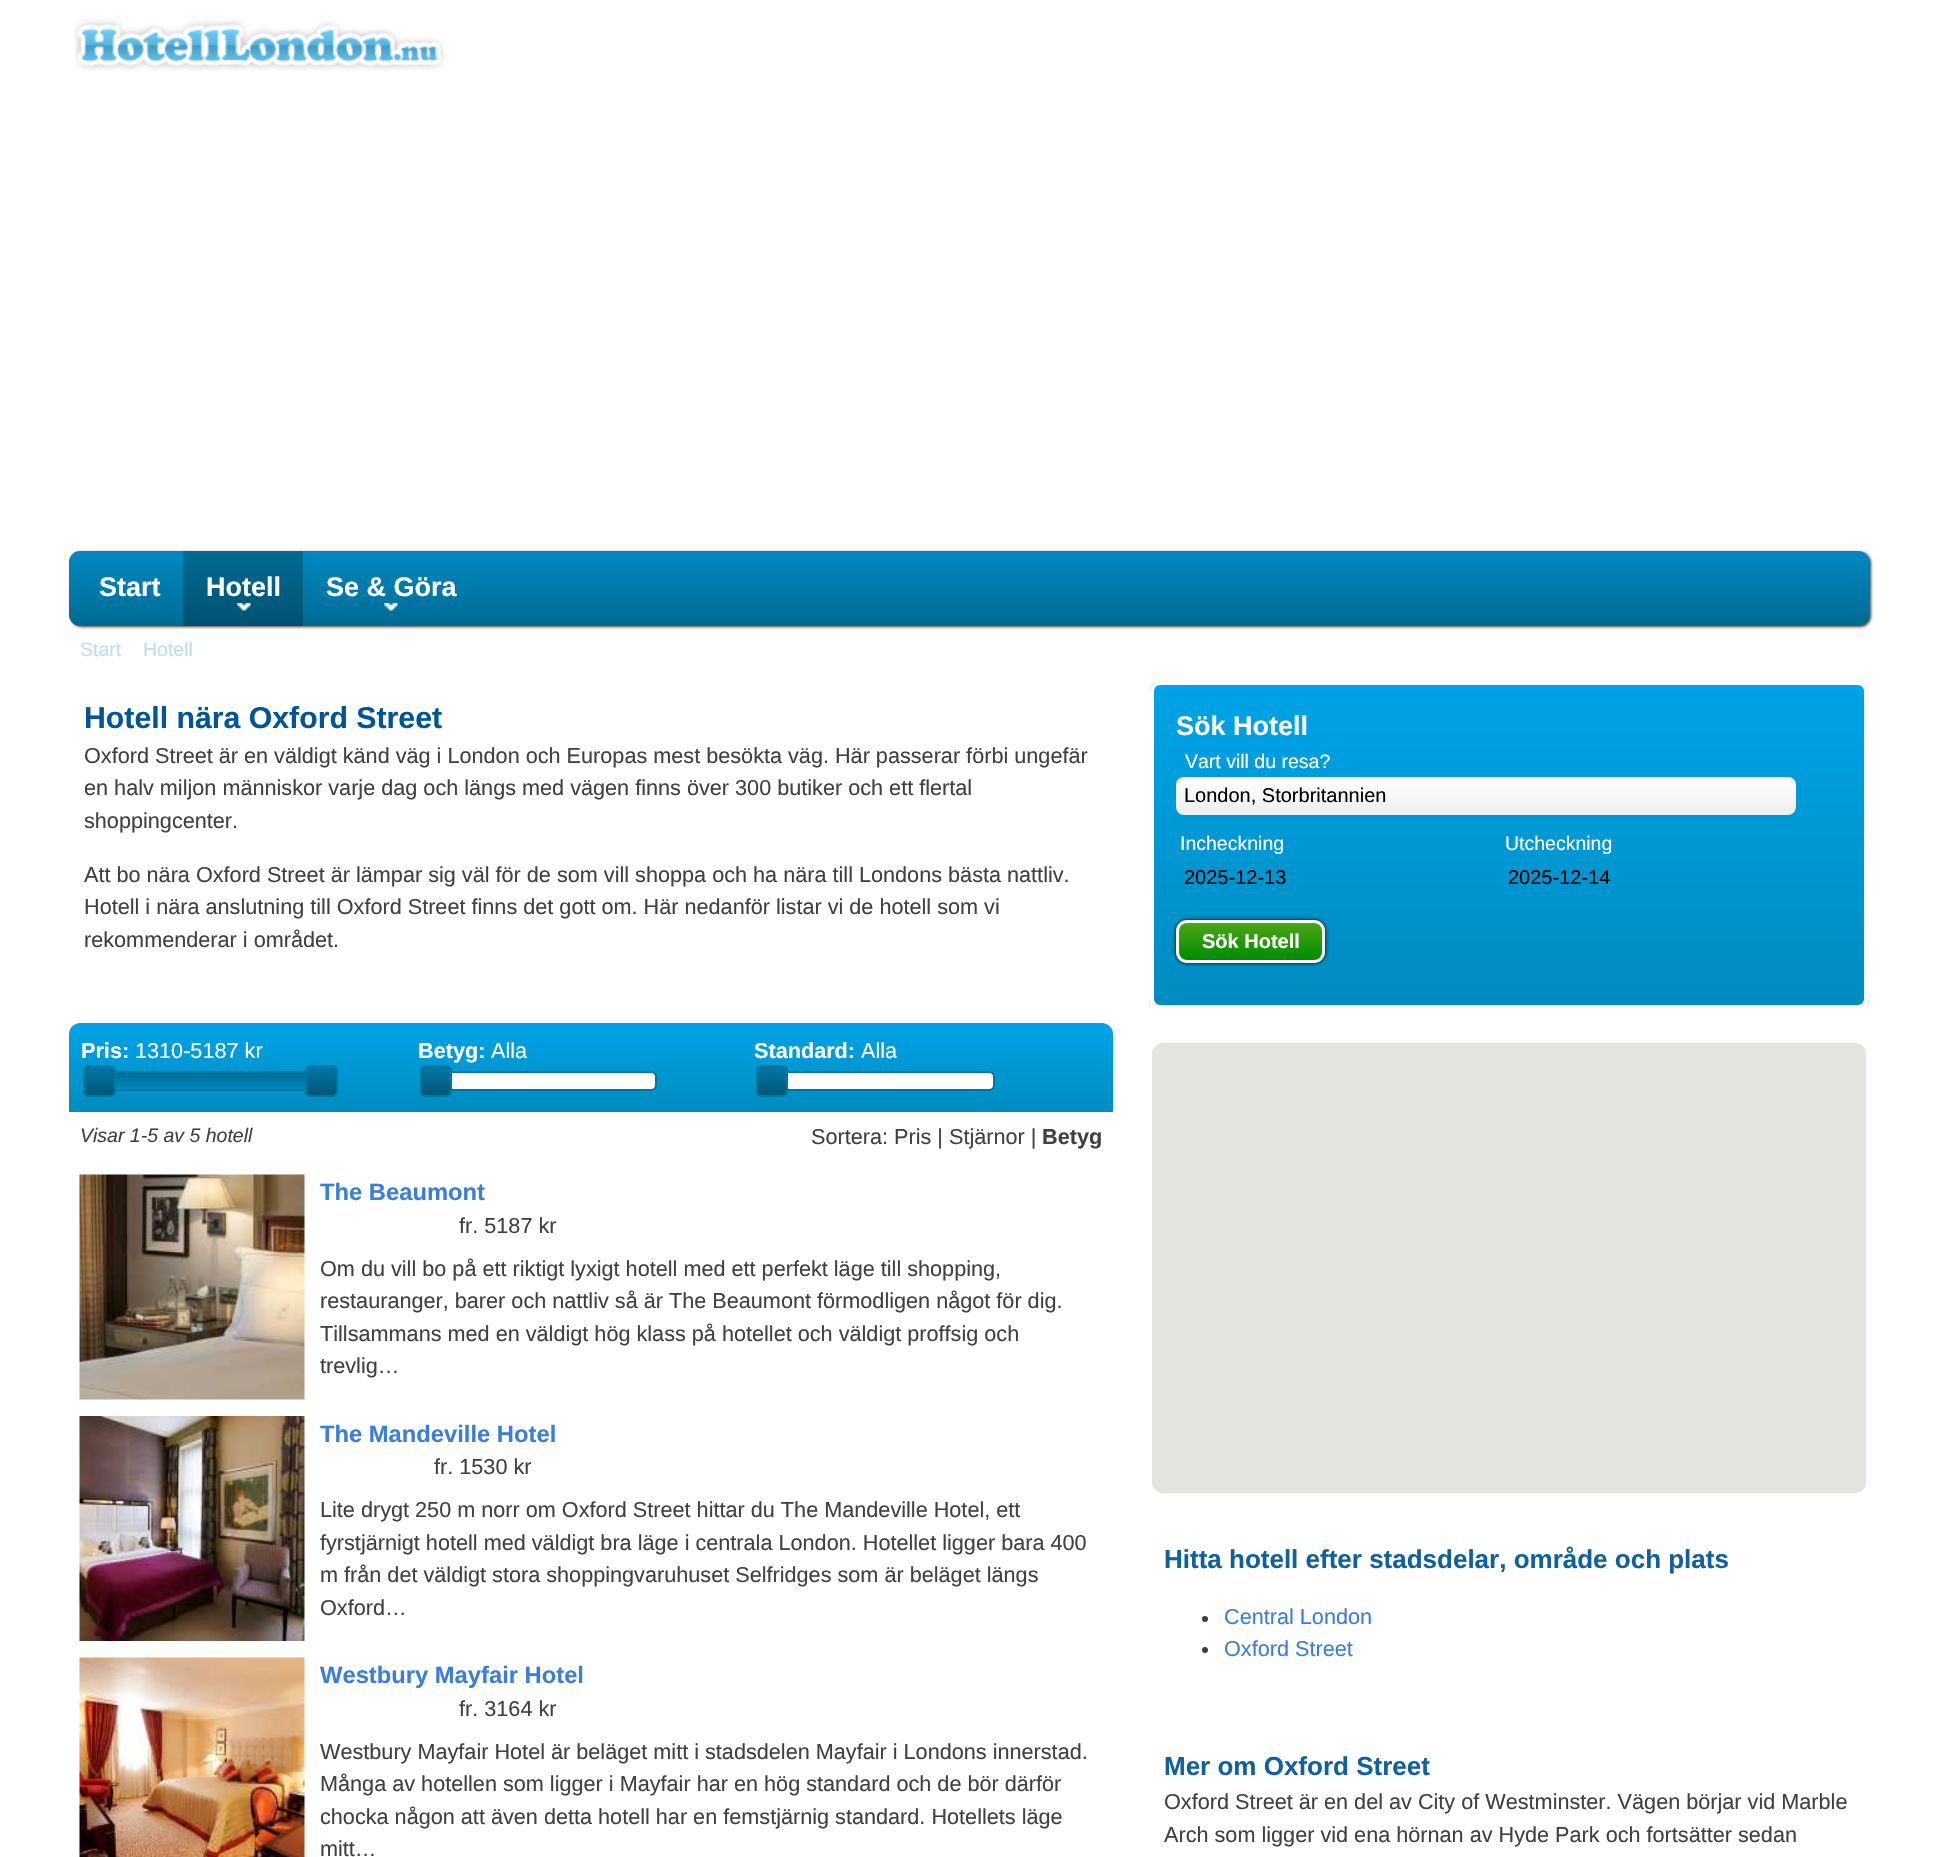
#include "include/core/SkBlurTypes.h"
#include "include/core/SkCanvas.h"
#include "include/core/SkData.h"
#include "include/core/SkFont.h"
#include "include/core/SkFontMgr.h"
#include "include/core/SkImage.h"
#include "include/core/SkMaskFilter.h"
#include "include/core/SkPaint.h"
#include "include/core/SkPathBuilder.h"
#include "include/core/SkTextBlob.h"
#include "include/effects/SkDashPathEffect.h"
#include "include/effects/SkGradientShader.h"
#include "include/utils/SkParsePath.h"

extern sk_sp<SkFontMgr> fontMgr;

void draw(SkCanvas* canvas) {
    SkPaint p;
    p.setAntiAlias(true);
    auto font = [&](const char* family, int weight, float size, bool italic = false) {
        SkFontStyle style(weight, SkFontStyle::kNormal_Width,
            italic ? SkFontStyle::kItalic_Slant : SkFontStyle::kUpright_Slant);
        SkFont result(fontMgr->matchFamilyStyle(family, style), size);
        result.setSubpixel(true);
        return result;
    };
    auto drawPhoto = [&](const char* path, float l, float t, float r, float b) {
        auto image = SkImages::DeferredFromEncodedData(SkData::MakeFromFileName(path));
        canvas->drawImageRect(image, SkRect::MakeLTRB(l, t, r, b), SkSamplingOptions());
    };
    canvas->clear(0xFFFFFFFF);
    drawPhoto("media/1.png", 74, 20, 444, 71);
    p.setColor(0xFF404040);
    p.setMaskFilter(SkMaskFilter::MakeBlur(kNormal_SkBlurStyle, 1.5f));
    canvas->drawRoundRect(SkRect::MakeLTRB(71, 552, 1871, 627), 11, 11, p);
    p.setMaskFilter(nullptr);
    {
        const SkColor colors[] = {0xFF0089C2, 0xFF006B93};
        const float stops[] = {0, 1};
        const SkPoint ends[] = {{969, 550}, {969, 626}};
        p.setShader(SkGradientShader::MakeLinear(ends, colors, stops, 2, SkTileMode::kClamp));
        p.setAlpha(255);
    }
    canvas->drawRoundRect(SkRect::MakeLTRB(69, 551, 1869, 626), 11, 11, p);
    auto font1 = font("Liberation Sans", 700, 27);
    p.setShader(nullptr);
    p.setColor(0xFFFFFFFF);
    canvas->drawString("Start", 99, 596, font1, p);
    {
        const SkColor colors[] = {0xFF026B95, 0xFF00516F};
        const float stops[] = {0, 1};
        const SkPoint ends[] = {{243, 551}, {243, 626}};
        p.setShader(SkGradientShader::MakeLinear(ends, colors, stops, 2, SkTileMode::kClamp));
        p.setAlpha(255);
    }
    canvas->drawRect(SkRect::MakeLTRB(183, 551, 303, 626), p);
    drawPhoto("media/2.png", 237, 603, 251, 611);
    p.setShader(nullptr);
    p.setColor(0xFFFFFFFF);
    canvas->drawString("Hotell", 206, 596, font1, p);
    drawPhoto("media/3.png", 384, 603, 398, 611);
    canvas->drawString("Se & Göra", 326, 596, font1, p);
    auto font2 = font("Liberation Sans", 400, 19.5f);
    p.setColor(0xFFBCDEEF);
    canvas->drawString("Start", 80, 656, font2, p);
    canvas->drawString("Hotell", 143, 656, font2, p);
    auto font3 = font("Liberation Sans", 700, 30.25f);
    p.setColor(0xFF005597);
    canvas->drawString("Hotell nära Oxford Street", 84, 728, font3, p);
    auto font4 = font("Liberation Sans", 400, 21.65f);
    p.setColor(0xFF404040);
    {
        const struct { const char* s; float x, y; } items[] = {
            {"Oxford Street är en väldigt känd väg i London och Europas mest besökta väg. Här passerar förbi ungefär", 84, 763},
            {"en halv miljon människor varje dag och längs med vägen finns över 300 butiker och ett flertal", 84, 795},
            {"shoppingcenter.", 84, 828},
            {"Att bo nära Oxford Street är lämpar sig väl för de som vill shoppa och ha nära till Londons bästa nattliv.", 84, 882},
            {"Hotell i nära anslutning till Oxford Street finns det gott om. Här nedanför listar vi de hotell som vi", 84, 914},
            {"rekommenderar i området.", 84, 947},
        };
        for (auto [s, x, y] : items) {
            canvas->drawString(s, x, y, font4, p);
        }
    }
    {
        const SkColor colors[] = {0xFF00A3E7, 0xFF008CC0};
        const float stops[] = {0, 1};
        const SkPoint ends[] = {{591, 1023}, {591, 1112}};
        p.setShader(SkGradientShader::MakeLinear(ends, colors, stops, 2, SkTileMode::kClamp));
        p.setAlpha(255);
    }
    canvas->drawPath(SkPathBuilder().moveTo(80, 1023).lineTo(1102, 1023).cubicTo(1108, 1023, 1113, 1028, 1113, 1034).lineTo(1113, 1112).lineTo(69, 1112).lineTo(69, 1034).cubicTo(69, 1028, 74, 1023, 80, 1023).close().detach(), p);
    auto font5 = font("Liberation Sans", 700, 21.65f);
    p.setShader(nullptr);
    p.setColor(0xFFFFFFFF);
    canvas->drawString("Pris:", 81, 1058, font5, p);
    canvas->drawString("1310-5187 kr", 135, 1058, font4, p);
    p.setStyle(SkPaint::kStroke_Style);
    p.setStrokeWidth(2);
    p.setColor(0xFF0076A2);
    canvas->drawRect(SkRect::MakeLTRB(97, 1072, 320, 1090), p);
    canvas->save();
    canvas->clipPath(SkPathBuilder().moveTo(89, 1065).lineTo(110, 1065).cubicTo(113.5f, 1065, 116, 1067.5f, 116, 1071).lineTo(116, 1091).cubicTo(116, 1094.5f, 113.5f, 1097, 110, 1097).lineTo(89, 1097).cubicTo(85.5f, 1097, 83, 1094.5f, 83, 1091).lineTo(83, 1071).cubicTo(83, 1067.5f, 85.5f, 1065, 89, 1065).close().detach(), true);
    p.setStyle(SkPaint::kFill_Style);
    {
        const SkColor colors[] = {0xFF0077A8, 0xFF015676};
        const float stops[] = {0, 1};
        const SkPoint ends[] = {{99, 1067}, {99, 1095}};
        p.setShader(SkGradientShader::MakeLinear(ends, colors, stops, 2, SkTileMode::kClamp));
        p.setAlpha(255);
    }
    canvas->drawRect(SkRect::MakeLTRB(83, 1067, 116, 1095), p);
    canvas->restore();
    p.setStyle(SkPaint::kStroke_Style);
    p.setShader(nullptr);
    p.setColor(0xFF0076A2);
    canvas->drawRoundRect(SkRect::MakeLTRB(84, 1066, 115, 1096), 5, 5, p);
    p.setStyle(SkPaint::kFill_Style);
    {
        const SkColor colors[] = {0xFF006B93, 0xFF0089C2};
        const float stops[] = {0, 1};
        const SkPoint ends[] = {{209, 1073}, {209, 1089}};
        p.setShader(SkGradientShader::MakeLinear(ends, colors, stops, 2, SkTileMode::kClamp));
        p.setAlpha(255);
    }
    canvas->drawRect(SkRect::MakeLTRB(116, 1073, 305, 1089), p);
    canvas->save();
    canvas->clipPath(SkPathBuilder().moveTo(311, 1065).lineTo(332, 1065).cubicTo(335.5f, 1065, 338, 1067.5f, 338, 1071).lineTo(338, 1091).cubicTo(338, 1094.5f, 335.5f, 1097, 332, 1097).lineTo(311, 1097).cubicTo(307.5f, 1097, 305, 1094.5f, 305, 1091).lineTo(305, 1071).cubicTo(305, 1067.5f, 307.5f, 1065, 311, 1065).close().detach(), true);
    {
        const SkColor colors[] = {0xFF0077A8, 0xFF015676};
        const float stops[] = {0, 1};
        const SkPoint ends[] = {{321, 1067}, {321, 1095}};
        p.setShader(SkGradientShader::MakeLinear(ends, colors, stops, 2, SkTileMode::kClamp));
        p.setAlpha(255);
    }
    canvas->drawRect(SkRect::MakeLTRB(305, 1067, 338, 1095), p);
    canvas->restore();
    p.setStyle(SkPaint::kStroke_Style);
    p.setShader(nullptr);
    p.setColor(0xFF0076A2);
    canvas->drawRoundRect(SkRect::MakeLTRB(306, 1066, 337, 1096), 5, 5, p);
    p.setStyle(SkPaint::kFill_Style);
    p.setColor(0xFFFFFFFF);
    canvas->drawString("Betyg:", 418, 1058, font5, p);
    canvas->drawString("Alla", 491, 1058, font4, p);
    canvas->drawRoundRect(SkRect::MakeLTRB(433, 1072, 656, 1090), 5, 5, p);
    p.setStyle(SkPaint::kStroke_Style);
    p.setColor(0xFF0076A2);
    canvas->drawRoundRect(SkRect::MakeLTRB(433, 1072, 656, 1090), 5, 5, p);
    canvas->save();
    canvas->clipPath(SkPathBuilder().moveTo(426, 1065).lineTo(446, 1065).cubicTo(449.5f, 1065, 452, 1067.5f, 452, 1071).lineTo(452, 1091).cubicTo(452, 1094.5f, 449.5f, 1097, 446, 1097).lineTo(426, 1097).cubicTo(422.5f, 1097, 420, 1094.5f, 420, 1091).lineTo(420, 1071).cubicTo(420, 1067.5f, 422.5f, 1065, 426, 1065).close().detach(), true);
    p.setStyle(SkPaint::kFill_Style);
    {
        const SkColor colors[] = {0xFF0077A8, 0xFF015676};
        const float stops[] = {0, 1};
        const SkPoint ends[] = {{436, 1067}, {436, 1095}};
        p.setShader(SkGradientShader::MakeLinear(ends, colors, stops, 2, SkTileMode::kClamp));
        p.setAlpha(255);
    }
    canvas->drawRect(SkRect::MakeLTRB(420, 1067, 452, 1095), p);
    canvas->restore();
    p.setStyle(SkPaint::kStroke_Style);
    p.setShader(nullptr);
    p.setColor(0xFF0076A2);
    canvas->drawRoundRect(SkRect::MakeLTRB(421, 1066, 451, 1096), 5, 5, p);
    p.setStyle(SkPaint::kFill_Style);
    p.setColor(0xFFFFFFFF);
    canvas->drawString("Standard:", 754, 1058, font5, p);
    canvas->drawString("Alla", 861, 1058, font4, p);
    canvas->drawRoundRect(SkRect::MakeLTRB(771, 1072, 994, 1090), 5, 5, p);
    p.setStyle(SkPaint::kStroke_Style);
    p.setColor(0xFF0076A2);
    canvas->drawRoundRect(SkRect::MakeLTRB(771, 1072, 994, 1090), 5, 5, p);
    canvas->save();
    canvas->clipPath(SkPathBuilder().moveTo(762, 1065).lineTo(782, 1065).cubicTo(785.5f, 1065, 788, 1067.5f, 788, 1071).lineTo(788, 1091).cubicTo(788, 1094.5f, 785.5f, 1097, 782, 1097).lineTo(762, 1097).cubicTo(758.5f, 1097, 756, 1094.5f, 756, 1091).lineTo(756, 1071).cubicTo(756, 1067.5f, 758.5f, 1065, 762, 1065).close().detach(), true);
    p.setStyle(SkPaint::kFill_Style);
    {
        const SkColor colors[] = {0xFF0077A8, 0xFF015676};
        const float stops[] = {0, 1};
        const SkPoint ends[] = {{772, 1067}, {772, 1095}};
        p.setShader(SkGradientShader::MakeLinear(ends, colors, stops, 2, SkTileMode::kClamp));
        p.setAlpha(255);
    }
    canvas->drawRect(SkRect::MakeLTRB(756, 1067, 788, 1095), p);
    canvas->restore();
    p.setStyle(SkPaint::kStroke_Style);
    p.setShader(nullptr);
    p.setColor(0xFF0076A2);
    canvas->drawRoundRect(SkRect::MakeLTRB(757, 1066, 787, 1096), 5, 5, p);
    auto font6 = font("Liberation Sans", 400, 19.5f, true);
    p.setStyle(SkPaint::kFill_Style);
    p.setColor(0xFF404040);
    canvas->drawString("Visar 1-5 av 5 hotell", 80, 1142, font6, p);
    canvas->drawString("Sortera: Pris | Stjärnor |", 811, 1144, font4, p);
    canvas->drawString("Betyg", 1042, 1144, font5, p);
    drawPhoto("media/4.png", 79, 1174, 305, 1400);
    auto font7 = font("Liberation Sans", 700, 23.75f);
    p.setColor(0xFF3A7DDA);
    canvas->drawString("The Beaumont", 320, 1200, font7, p);
    p.setColor(0xFF404040);
    {
        const struct { const char* s; float x, y; } items[] = {
            {"fr. 5187 kr", 459, 1233},
            {"Om du vill bo på ett riktigt lyxigt hotell med ett perfekt läge till shopping,", 320, 1276},
            {"restauranger, barer och nattliv så är The Beaumont förmodligen något för dig.", 320, 1308},
            {"Tillsammans med en väldigt hög klass på hotellet och väldigt proffsig och", 320, 1341},
            {"trevlig…", 320, 1373},
        };
        for (auto [s, x, y] : items) {
            canvas->drawString(s, x, y, font4, p);
        }
    }
    drawPhoto("media/5.png", 79, 1416, 305, 1641);
    p.setColor(0xFF3A7DDA);
    canvas->drawString("The Mandeville Hotel", 320, 1442, font7, p);
    p.setColor(0xFF404040);
    {
        const struct { const char* s; float x, y; } items[] = {
            {"fr. 1530 kr", 434, 1474},
            {"Lite drygt 250 m norr om Oxford Street hittar du The Mandeville Hotel, ett", 320, 1517},
            {"fyrstjärnigt hotell med väldigt bra läge i centrala London. Hotellet ligger bara 400", 320, 1550},
            {"m från det väldigt stora shoppingvaruhuset Selfridges som är beläget längs", 320, 1582},
            {"Oxford…", 320, 1615},
        };
        for (auto [s, x, y] : items) {
            canvas->drawString(s, x, y, font4, p);
        }
    }
    drawPhoto("media/6.png", 79, 1657, 305, 1857);
    p.setColor(0xFF3A7DDA);
    canvas->drawString("Westbury Mayfair Hotel", 320, 1683, font7, p);
    p.setColor(0xFF404040);
    {
        const struct { const char* s; float x, y; } items[] = {
            {"fr. 3164 kr", 459, 1716},
            {"Westbury Mayfair Hotel är beläget mitt i stadsdelen Mayfair i Londons innerstad.", 320, 1759},
            {"Många av hotellen som ligger i Mayfair har en hög standard och de bör därför", 320, 1791},
            {"chocka någon att även detta hotell har en femstjärnig standard. Hotellets läge", 320, 1824},
            {"mitt…", 320, 1856},
        };
        for (auto [s, x, y] : items) {
            canvas->drawString(s, x, y, font4, p);
        }
    }
    canvas->save();
    canvas->clipPath(SkPathBuilder().moveTo(1160, 680).lineTo(1858, 680).cubicTo(1864, 680, 1869, 685, 1869, 691).lineTo(1869, 999).cubicTo(1869, 1005, 1864, 1010, 1858, 1010).lineTo(1160, 1010).cubicTo(1154, 1010, 1149, 1005, 1149, 999).lineTo(1149, 691).cubicTo(1149, 685, 1154, 680, 1160, 680).close().detach(), true);
    {
        const SkColor colors[] = {0xFF00A3E7, 0xFF008CC0};
        const float stops[] = {0, 1};
        const SkPoint ends[] = {{1509, 684}, {1509, 1005}};
        p.setShader(SkGradientShader::MakeLinear(ends, colors, stops, 2, SkTileMode::kClamp));
        p.setAlpha(255);
    }
    canvas->drawRect(SkRect::MakeLTRB(1149, 684, 1869, 1005), p);
    canvas->restore();
    p.setStyle(SkPaint::kStroke_Style);
    p.setStrokeWidth(5);
    p.setShader(nullptr);
    p.setColor(0xFFFFFFFF);
    canvas->drawRoundRect(SkRect::MakeLTRB(1151.5f, 682.5f, 1866.5f, 1007.5f), 8.5f, 8.5f, p);
    p.setStyle(SkPaint::kFill_Style);
    canvas->drawString("Sök Hotell", 1176, 735, font1, p);
    canvas->drawString("Vart vill du resa?", 1185, 768, font2, p);
    {
        const SkColor colors[] = {0xFFFFFFFF, 0xFFEEEEEE};
        const float stops[] = {0, 1};
        const SkPoint ends[] = {{1486, 777}, {1486, 815}};
        p.setShader(SkGradientShader::MakeLinear(ends, colors, stops, 2, SkTileMode::kClamp));
        p.setAlpha(255);
    }
    canvas->drawRoundRect(SkRect::MakeLTRB(1176, 777, 1796, 815), 8, 8, p);
    auto font8 = font("Liberation Sans", 400, 20);
    p.setShader(nullptr);
    p.setColor(0xFF000000);
    canvas->drawString("London, Storbritannien", 1184, 802, font8, p);
    p.setColor(0xFFFFFFFF);
    canvas->drawString("Incheckning", 1180, 850, font2, p);
    p.setColor(0xFF000000);
    canvas->drawString("2025-12-13", 1184, 884, font8, p);
    p.setColor(0xFFFFFFFF);
    canvas->drawString("Utcheckning", 1505, 850, font2, p);
    p.setColor(0xFF000000);
    canvas->drawString("2025-12-14", 1508, 884, font8, p);
    p.setMaskFilter(SkMaskFilter::MakeBlur(kNormal_SkBlurStyle, 2));
    canvas->drawRoundRect(SkRect::MakeLTRB(1176, 920, 1325, 963), 11, 11, p);
    p.setMaskFilter(nullptr);
    canvas->save();
    canvas->clipPath(SkPathBuilder().moveTo(1187, 920).lineTo(1314, 920).cubicTo(1320, 920, 1325, 925, 1325, 931).lineTo(1325, 952).cubicTo(1325, 958, 1320, 963, 1314, 963).lineTo(1187, 963).cubicTo(1181, 963, 1176, 958, 1176, 952).lineTo(1176, 931).cubicTo(1176, 925, 1181, 920, 1187, 920).close().detach(), true);
    {
        const SkColor colors[] = {0xFF4BA614, 0xFF008C00};
        const float stops[] = {0, 1};
        const SkPoint ends[] = {{1250, 923}, {1250, 960}};
        p.setShader(SkGradientShader::MakeLinear(ends, colors, stops, 2, SkTileMode::kClamp));
        p.setAlpha(255);
    }
    canvas->drawRect(SkRect::MakeLTRB(1176, 923, 1325, 960), p);
    canvas->restore();
    p.setStyle(SkPaint::kStroke_Style);
    p.setStrokeWidth(3);
    p.setShader(nullptr);
    p.setColor(0xFFFFFFFF);
    canvas->drawRoundRect(SkRect::MakeLTRB(1177.5f, 921.5f, 1323.5f, 961.5f), 9.5f, 9.5f, p);
    auto font9 = font("Liberation Sans", 700, 20);
    p.setStyle(SkPaint::kFill_Style);
    canvas->drawString("Sök Hotell", 1202, 948, font9, p);
    p.setColor(0xFFE5E3DF);
    canvas->drawRoundRect(SkRect::MakeLTRB(1152, 1043, 1866, 1493), 11, 11, p);
    auto font10 = font("Liberation Sans", 700, 26);
    p.setColor(0xFF10609E);
    canvas->drawString("Hitta hotell efter stadsdelar, område och plats", 1164, 1568, font10, p);
    p.setColor(0xFF404040);
    canvas->drawCircle(1205, 1619, 3, p);
    p.setColor(0xFF3A7DDA);
    canvas->drawString("Central London", 1224, 1624, font4, p);
    p.setColor(0xFF404040);
    canvas->drawCircle(1205, 1650, 3, p);
    p.setColor(0xFF3A7DDA);
    canvas->drawString("Oxford Street", 1224, 1656, font4, p);
    p.setColor(0xFF10609E);
    canvas->drawString("Mer om Oxford Street", 1164, 1775, font10, p);
    p.setColor(0xFF404040);
    canvas->drawString("Oxford Street är en del av City of Westminster. Vägen börjar vid Marble", 1164, 1809, font4, p);
    canvas->drawString("Arch som ligger vid ena hörnan av Hyde Park och fortsätter sedan", 1164, 1842, font4, p);
}
